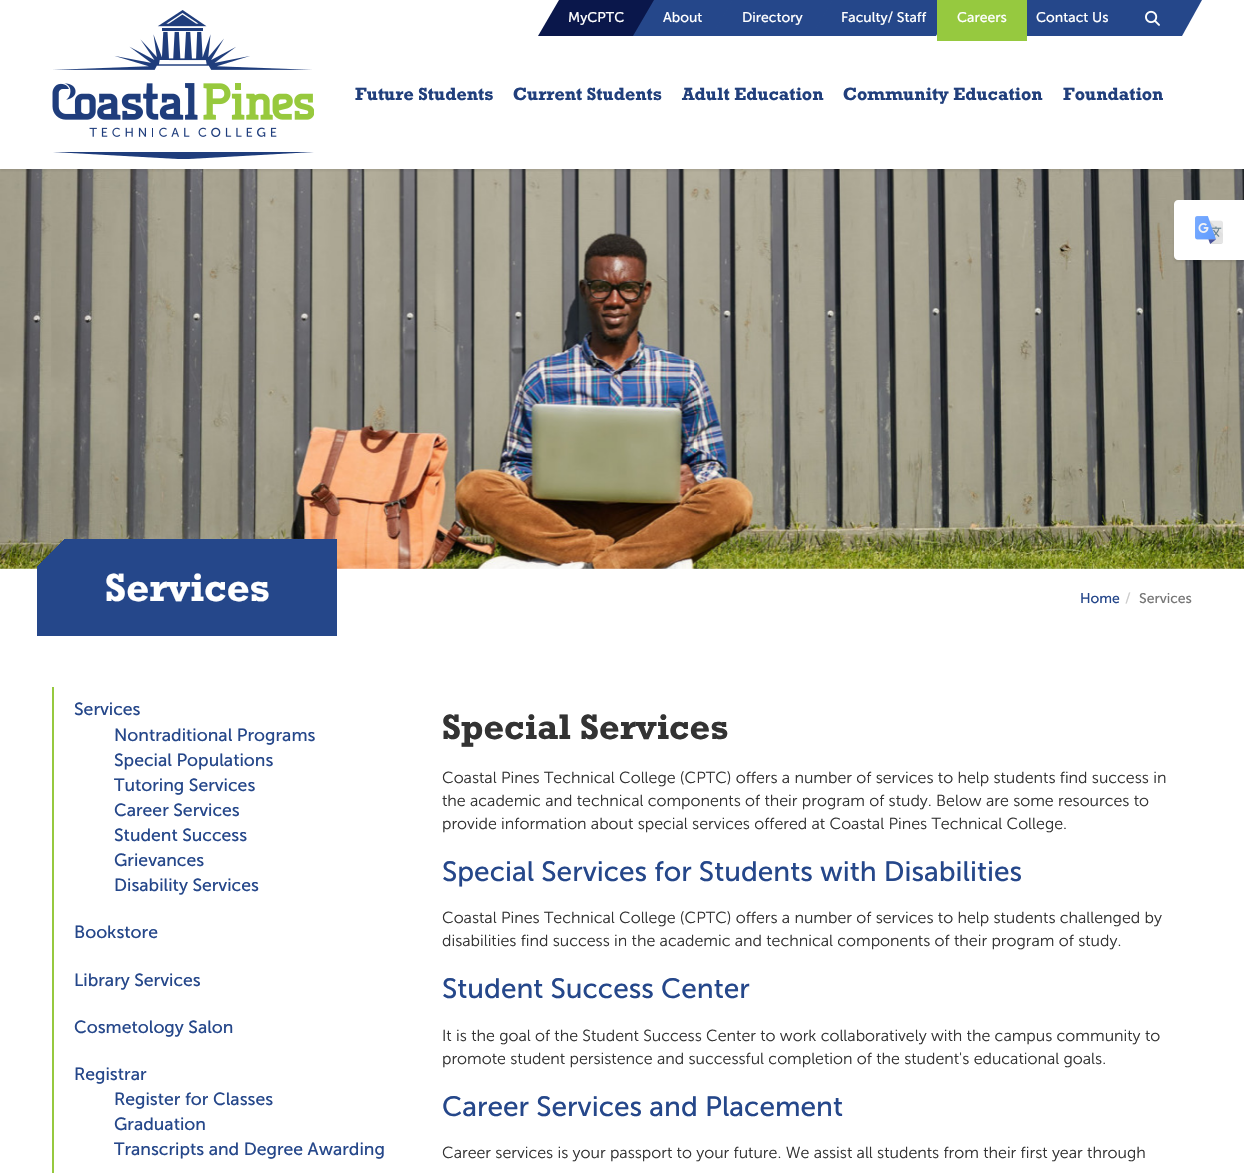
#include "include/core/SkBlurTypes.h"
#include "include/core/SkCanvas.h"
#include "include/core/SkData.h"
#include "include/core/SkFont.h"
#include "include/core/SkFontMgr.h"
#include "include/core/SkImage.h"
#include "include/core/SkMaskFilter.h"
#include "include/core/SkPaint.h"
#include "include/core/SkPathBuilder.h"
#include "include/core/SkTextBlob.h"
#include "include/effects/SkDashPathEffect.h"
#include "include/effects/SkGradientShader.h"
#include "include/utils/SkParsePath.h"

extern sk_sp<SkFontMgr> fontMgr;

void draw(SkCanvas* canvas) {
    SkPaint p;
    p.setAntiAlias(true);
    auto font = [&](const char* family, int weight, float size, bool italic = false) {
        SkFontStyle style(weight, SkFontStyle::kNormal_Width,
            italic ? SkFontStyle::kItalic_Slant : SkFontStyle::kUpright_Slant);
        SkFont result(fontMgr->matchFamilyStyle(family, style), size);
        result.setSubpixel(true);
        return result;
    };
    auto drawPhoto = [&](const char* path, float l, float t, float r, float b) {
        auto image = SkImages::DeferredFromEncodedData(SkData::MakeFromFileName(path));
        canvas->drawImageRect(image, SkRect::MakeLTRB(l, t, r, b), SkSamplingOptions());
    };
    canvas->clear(0xFFFFFFFF);
    drawPhoto("media/4.png", 0, 169, 1244, 569);
    canvas->save();
    canvas->clipRect(SkRect::MakeLTRB(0, 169, 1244, 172));
    p.setColor(0x12000000);
    p.setMaskFilter(SkMaskFilter::MakeBlur(kNormal_SkBlurStyle, 1));
    canvas->drawRect(SkRect::MakeLTRB(0, 2, 1244, 171), p);
    p.setMaskFilter(nullptr);
    canvas->restore();
    p.setColor(0xFF0A174B);
    canvas->drawPath(SkPathBuilder().moveTo(559, 0).lineTo(655, 0).lineTo(634, 36).lineTo(538, 36).close().detach(), p);
    auto font1 = font("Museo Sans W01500", 400, 14);
    p.setColor(0xFFFFFFFF);
    canvas->drawString("MyCPTC", 568, 22, font1, p);
    p.setColor(0xFF25478A);
    canvas->drawPath(SkPathBuilder().moveTo(654, 0).lineTo(733, 0).lineTo(712, 36).lineTo(633, 36).close().detach(), p);
    p.setColor(0xFFFFFFFF);
    canvas->drawString("About", 663, 22, font1, p);
    p.setColor(0xFF25478A);
    canvas->drawPath(SkPathBuilder().moveTo(732, 0).lineTo(833, 0).lineTo(812, 36).lineTo(711, 36).close().detach(), p);
    p.setColor(0xFFFFFFFF);
    canvas->drawString("Directory", 742, 22, font1, p);
    p.setColor(0xFF25478A);
    canvas->drawPath(SkPathBuilder().moveTo(832, 0).lineTo(957, 0).lineTo(936, 36).lineTo(811, 36).close().detach(), p);
    p.setColor(0xFFFFFFFF);
    canvas->drawString("Faculty/ Staff", 841, 22, font1, p);
    p.setColor(0xFF25478A);
    canvas->drawPath(SkPathBuilder().moveTo(1122, 0).lineTo(1202, 0).lineTo(1182, 36).lineTo(1102, 36).close().detach(), p);
    canvas->drawPath(SkPathBuilder().moveTo(1026, 0).lineTo(1138, 0).lineTo(1118, 36).lineTo(1005, 36).close().detach(), p);
    p.setColor(0xFF96C93F);
    canvas->drawRect(SkRect::MakeLTRB(937, 0, 1027, 41), p);
    p.setColor(0xFFFFFFFF);
    canvas->drawString("Careers", 957, 22, font1, p);
    canvas->drawString("Contact Us", 1036, 22, font1, p);
    drawPhoto("media/1.png", 1145, 10, 1160, 26);
    drawPhoto("media/2.png", 52, 10, 314, 159);
    auto font2 = font("Rockwell", 700, 18);
    p.setColor(0xFF213F7C);
    {
        const struct { const char* s; float x, y; } items[] = {
            {"Future Students", 355, 100},
            {"Current Students", 513, 100},
            {"Adult Education", 682, 100},
            {"Community Education", 843, 100},
            {"Foundation", 1063, 100},
        };
        for (auto [s, x, y] : items) {
            canvas->drawString(s, x, y, font2, p);
        }
    }
    p.setColor(0x17000000);
    p.setMaskFilter(SkMaskFilter::MakeBlur(kNormal_SkBlurStyle, 1));
    canvas->drawRoundRect(SkRect::MakeLTRB(1174, 202, 1244, 262), 4, 4, p);
    p.setMaskFilter(nullptr);
    p.setColor(0xFFFFFFFF);
    canvas->drawPath(SkPathBuilder().moveTo(1178, 200).lineTo(1244, 200).lineTo(1244, 260).lineTo(1178, 260).cubicTo(1176, 260, 1174, 258, 1174, 256).lineTo(1174, 204).cubicTo(1174, 202, 1176, 200, 1178, 200).close().detach(), p);
    drawPhoto("media/3.png", 1195, 216, 1223, 244);
    {
        const SkColor colors[] = {0x0025478A, 0xFF25478A};
        const float stops[] = {0.07f, 0.07f};
        const SkPoint ends[] = {{88, 488}, {286, 687}};
        p.setShader(SkGradientShader::MakeLinear(ends, colors, stops, 2, SkTileMode::kClamp));
        p.setAlpha(255);
    }
    canvas->drawRect(SkRect::MakeLTRB(37, 539, 337, 636), p);
    auto font3 = font("Rockwell", 700, 40);
    p.setShader(nullptr);
    p.setColor(0xFFFFFFFF);
    canvas->drawString("Services", 105, 601, font3, p);
    p.setColor(0xFF25478A);
    canvas->drawString("Home", 1080, 603, font1, p);
    p.setColor(0xFFCCCCCC);
    canvas->drawString("/", 1125, 603, font1, p);
    p.setColor(0xFF777777);
    canvas->drawString("Services", 1139, 603, font1, p);
    p.setColor(0xFF96C93F);
    canvas->drawRect(SkRect::MakeLTRB(52, 687, 54, 1173), p);
    auto font4 = font("Museo Sans W01500", 400, 17.6f);
    p.setColor(0xFF25478A);
    {
        const struct { const char* s; float x, y; } items[] = {
            {"Services", 74, 715},
            {"Nontraditional Programs", 114, 741},
            {"Special Populations", 114, 766},
            {"Tutoring Services", 114, 791},
            {"Career Services", 114, 816},
            {"Student Success", 114, 841},
            {"Grievances", 114, 866},
            {"Disability Services", 114, 891},
            {"Bookstore", 74, 938},
            {"Library Services", 74, 986},
            {"Cosmetology Salon", 74, 1033},
            {"Registrar", 74, 1080},
            {"Register for Classes", 114, 1105},
            {"Graduation", 114, 1130},
            {"Transcripts and Degree Awarding", 114, 1155},
        };
        for (auto [s, x, y] : items) {
            canvas->drawString(s, x, y, font4, p);
        }
    }
    auto font5 = font("Rockwell", 700, 36);
    p.setColor(0xFF333333);
    canvas->drawString("Special Services", 442, 739, font5, p);
    auto font6 = font("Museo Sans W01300", 300, 16);
    {
        const struct { const char* s; float x, y; } items[] = {
            {"Coastal Pines Technical College (CPTC) offers a number of services to help students find success in", 442, 783},
            {"the academic and technical components of their program of study. Below are some resources to", 442, 806},
            {"provide information about special services offered at Coastal Pines Technical College.", 442, 829},
        };
        for (auto [s, x, y] : items) {
            canvas->drawString(s, x, y, font6, p);
        }
    }
    auto font7 = font("Museo Sans W01500", 400, 28);
    p.setColor(0xFF25478A);
    canvas->drawString("Special Services for Students with Disabilities", 442, 881, font7, p);
    p.setColor(0xFF333333);
    canvas->drawString("Coastal Pines Technical College (CPTC) offers a number of services to help students challenged by", 442, 923, font6, p);
    canvas->drawString("disabilities find success in the academic and technical components of their program of study.", 442, 946, font6, p);
    p.setColor(0xFF25478A);
    canvas->drawString("Student Success Center", 442, 998, font7, p);
    p.setColor(0xFF333333);
    canvas->drawString("It is the goal of the Student Success Center to work collaboratively with the campus community to", 442, 1041, font6, p);
    canvas->drawString("promote student persistence and successful completion of the student's educational goals.", 442, 1064, font6, p);
    p.setColor(0xFF25478A);
    canvas->drawString("Career Services and Placement", 442, 1116, font7, p);
    p.setColor(0xFF333333);
    canvas->drawString("Career services is your passport to your future. We assist all students from their first year through", 442, 1158, font6, p);
}
